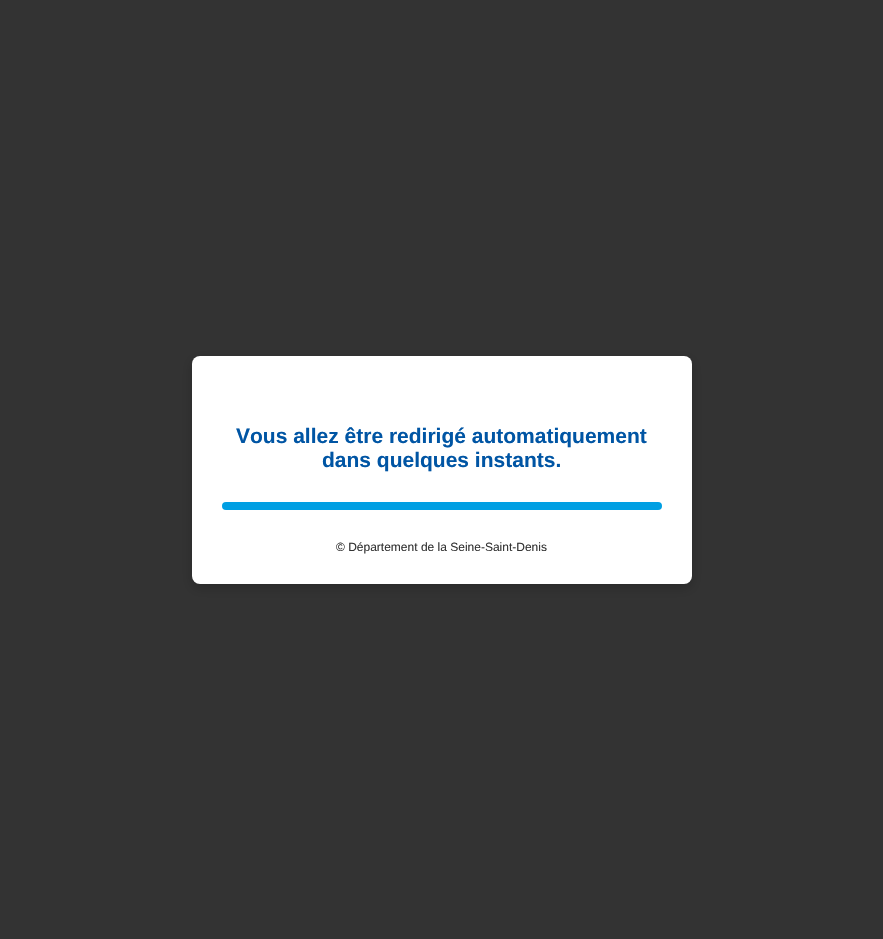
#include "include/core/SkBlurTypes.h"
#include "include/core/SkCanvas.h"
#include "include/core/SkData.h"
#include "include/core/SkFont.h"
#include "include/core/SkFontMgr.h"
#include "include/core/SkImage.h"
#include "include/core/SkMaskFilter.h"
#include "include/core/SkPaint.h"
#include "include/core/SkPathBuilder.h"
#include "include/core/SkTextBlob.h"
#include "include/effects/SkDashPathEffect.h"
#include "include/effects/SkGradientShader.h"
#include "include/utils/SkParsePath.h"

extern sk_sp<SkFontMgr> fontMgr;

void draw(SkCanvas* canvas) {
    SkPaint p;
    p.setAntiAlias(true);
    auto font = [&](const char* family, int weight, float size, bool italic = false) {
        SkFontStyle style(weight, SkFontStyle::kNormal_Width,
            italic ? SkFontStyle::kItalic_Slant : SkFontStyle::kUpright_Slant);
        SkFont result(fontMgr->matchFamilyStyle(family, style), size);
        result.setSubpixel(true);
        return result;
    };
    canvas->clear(0xFF333333);
    p.setColor(0x33000000);
    p.setMaskFilter(SkMaskFilter::MakeBlur(kNormal_SkBlurStyle, 6));
    canvas->drawRoundRect(SkRect::MakeLTRB(192, 360, 692, 588), 8, 8, p);
    p.setMaskFilter(nullptr);
    p.setColor(0xFFFFFFFF);
    canvas->drawRoundRect(SkRect::MakeLTRB(192, 356, 692, 584), 8, 8, p);
    auto font1 = font("Liberation Sans", 700, 21);
    p.setColor(0xFF0055A4);
    canvas->drawString("Vous allez être redirigé automatiquement", 236, 443, font1, p);
    canvas->drawString("dans quelques instants.", 322, 467, font1, p);
    p.setColor(0xFF009FE3);
    canvas->drawRoundRect(SkRect::MakeLTRB(222, 502, 662, 510), 4, 4, p);
    auto font2 = font("Liberation Sans", 400, 12);
    p.setColor(0xFF333333);
    canvas->drawString("© Département de la Seine-Saint-Denis", 336, 551, font2, p);
}
